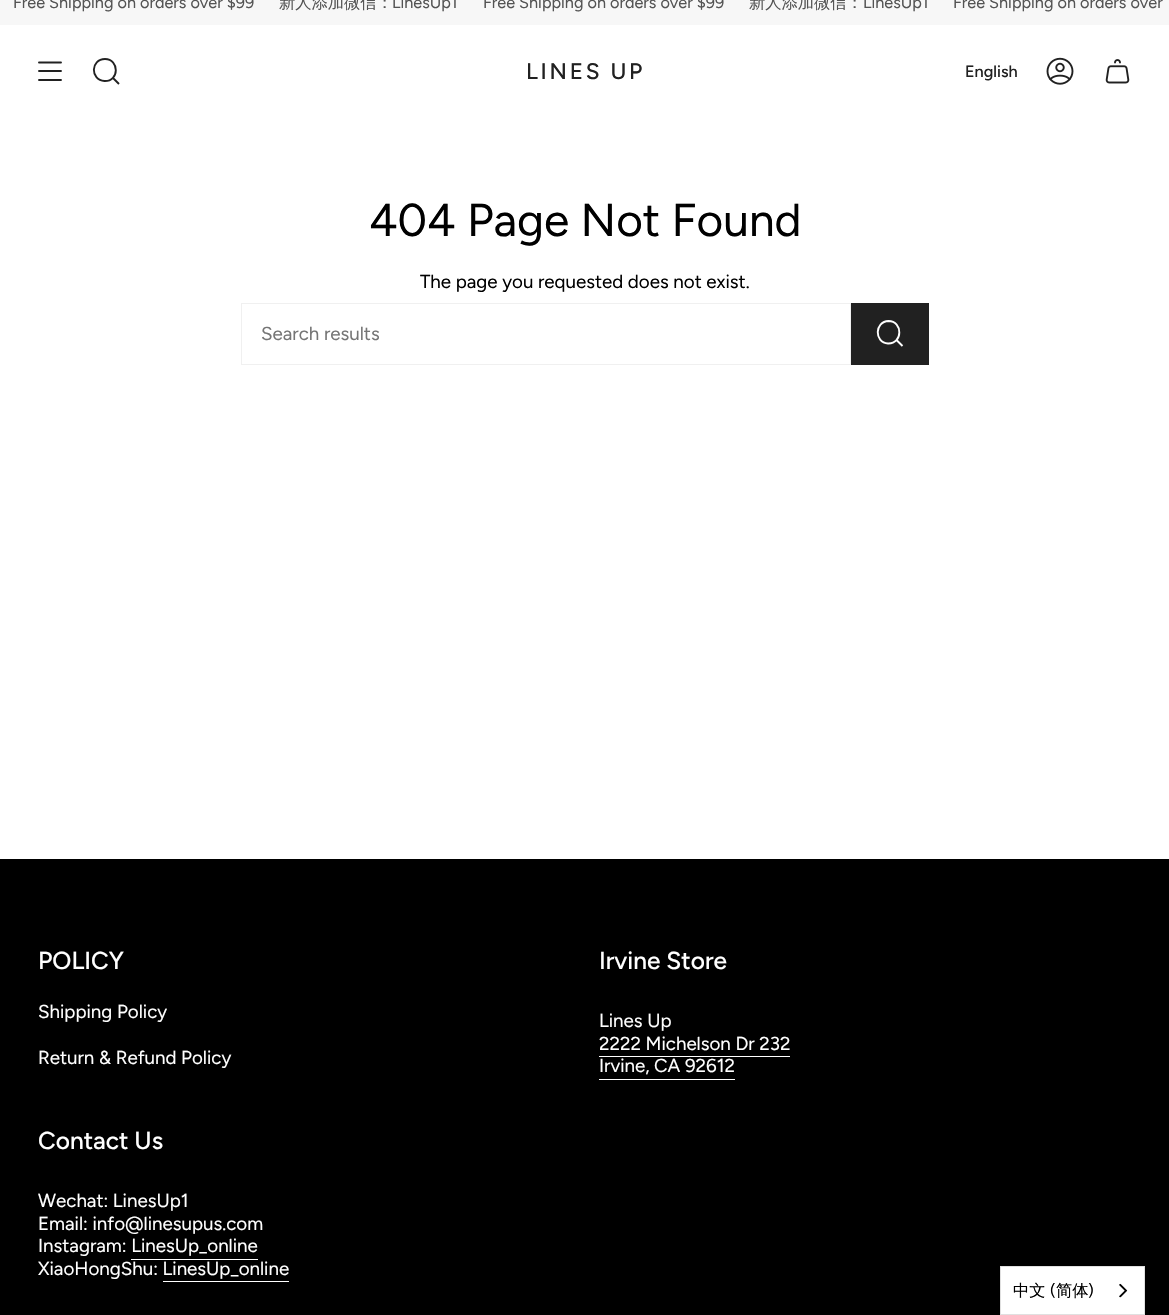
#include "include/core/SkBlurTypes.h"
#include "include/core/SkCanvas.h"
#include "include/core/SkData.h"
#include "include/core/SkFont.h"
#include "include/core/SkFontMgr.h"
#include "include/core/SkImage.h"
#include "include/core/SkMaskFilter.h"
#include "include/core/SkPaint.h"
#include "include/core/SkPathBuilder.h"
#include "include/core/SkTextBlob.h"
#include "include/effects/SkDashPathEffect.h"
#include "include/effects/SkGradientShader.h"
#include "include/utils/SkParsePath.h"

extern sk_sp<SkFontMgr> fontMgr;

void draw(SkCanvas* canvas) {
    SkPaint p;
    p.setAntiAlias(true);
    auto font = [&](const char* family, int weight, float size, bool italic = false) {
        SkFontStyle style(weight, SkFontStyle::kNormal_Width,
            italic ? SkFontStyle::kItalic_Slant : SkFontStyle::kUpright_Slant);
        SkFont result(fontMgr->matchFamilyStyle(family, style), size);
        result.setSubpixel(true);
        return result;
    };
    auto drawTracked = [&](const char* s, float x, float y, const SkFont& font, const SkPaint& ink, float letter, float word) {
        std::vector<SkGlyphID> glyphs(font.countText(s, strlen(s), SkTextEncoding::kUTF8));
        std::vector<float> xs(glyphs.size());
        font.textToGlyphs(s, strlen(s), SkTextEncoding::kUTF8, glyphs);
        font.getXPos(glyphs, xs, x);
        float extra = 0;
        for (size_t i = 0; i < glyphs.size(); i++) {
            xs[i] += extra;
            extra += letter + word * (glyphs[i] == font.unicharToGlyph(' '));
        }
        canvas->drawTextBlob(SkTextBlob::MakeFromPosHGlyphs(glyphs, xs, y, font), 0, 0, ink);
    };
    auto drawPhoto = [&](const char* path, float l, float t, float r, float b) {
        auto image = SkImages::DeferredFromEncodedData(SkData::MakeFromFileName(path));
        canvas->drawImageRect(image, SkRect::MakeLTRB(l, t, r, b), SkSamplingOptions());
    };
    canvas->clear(0xFFFFFFFF);
    p.setColor(0xFFF7F7F7);
    canvas->drawRect(SkRect::MakeLTRB(0, 0, 1169, 25), p);
    auto font1 = font("Figtree", 400, 16.25f);
    p.setColor(0xFF545454);
    canvas->drawString("Free Shipping on orders over $99", 13, 8, font1, p);
    auto font2 = font("WenQuanYi Zen Hei", 500, 16.25f);
    canvas->drawString("新人添加微信：", 279, 8, font2, p);
    canvas->drawString("LinesUp1", 392, 8, font1, p);
    canvas->drawString("Free Shipping on orders over $99", 483, 8, font1, p);
    canvas->drawString("新人添加微信：", 749, 8, font2, p);
    canvas->drawString("LinesUp1", 863, 8, font1, p);
    canvas->drawString("Free Shipping on orders over", 953, 8, font1, p);
    p.setStyle(SkPaint::kStroke_Style);
    p.setStrokeWidth(1.9f);
    p.setStrokeCap(SkPaint::kRound_Cap);
    p.setStrokeJoin(SkPaint::kRound_Join);
    p.setColor(0xFF212121);
    canvas->drawPath(SkPathBuilder().moveTo(39, 62.5f).lineTo(61, 62.5f).moveTo(39, 71).lineTo(61, 71).moveTo(39, 80).lineTo(61, 80).detach(), p);
    p.setStrokeCap(SkPaint::kButt_Cap);
    p.setStrokeJoin(SkPaint::kMiter_Join);
    canvas->drawPath(SkPathBuilder().moveTo(105, 59).cubicTo(119.5f, 59, 119.5f, 81.5f, 104.5f, 81).cubicTo(90, 80, 90.5f, 59, 105, 59).close().moveTo(112.5f, 77.5f).lineTo(119, 84).detach(), p);
    auto font3 = font("Figtree", 500, 22.5f);
    p.setStyle(SkPaint::kFill_Style);
    drawTracked("LINES UP", 526, 79, font3, p, 2.75f, 0);
    auto font4 = font("Figtree", 500, 16.25f);
    canvas->drawString("English", 965, 77, font4, p);
    drawPhoto("media/1.png", 1046, 57, 1074, 85);
    drawPhoto("media/2.png", 1105, 59, 1130, 84);
    auto font5 = font("Figtree", 400, 46);
    p.setColor(0xFF000000);
    canvas->drawString("404 Page Not Found", 369, 236, font5, p);
    auto font6 = font("Figtree", 400, 18.75f);
    canvas->drawString("The page you requested does not exist.", 420, 288, font6, p);
    p.setStyle(SkPaint::kStroke_Style);
    p.setStrokeWidth(1);
    p.setColor(0xFFF0F0F0);
    canvas->drawRect(SkRect::MakeLTRB(241.5f, 303.5f, 850.5f, 364.5f), p);
    p.setStyle(SkPaint::kFill_Style);
    p.setColor(0xFF757575);
    canvas->drawString("Search results", 261, 340, font6, p);
    p.setColor(0xFF212121);
    canvas->drawRect(SkRect::MakeLTRB(851, 303, 929, 365), p);
    p.setStyle(SkPaint::kStroke_Style);
    p.setStrokeWidth(1.9f);
    p.setColor(0xFFFFFFFF);
    canvas->drawPath(SkPathBuilder().moveTo(888.5f, 321).cubicTo(903, 321, 903, 344, 888, 343.5f).cubicTo(874, 342.5f, 874.5f, 321.5f, 888.5f, 321).close().moveTo(896.5f, 340).lineTo(902.5f, 346).detach(), p);
    p.setStyle(SkPaint::kFill_Style);
    p.setColor(0xFF000000);
    canvas->drawRect(SkRect::MakeLTRB(0, 859, 1169, 1315), p);
    auto font7 = font("Figtree", 500, 24.5f);
    p.setColor(0xFFFFFFFF);
    canvas->drawString("POLICY", 38, 969, font7, p);
    canvas->drawString("Shipping Policy", 38, 1018, font6, p);
    canvas->drawString("Return & Refund Policy", 38, 1064, font6, p);
    canvas->drawString("Irvine Store", 599, 969, font7, p);
    {
        const struct { const char* s; float x, y; } items[] = {
            {"Lines Up", 599, 1027},
            {"2222 Michelson Dr 232", 599, 1050},
            {"Irvine, CA 92612", 599, 1072},
        };
        for (auto [s, x, y] : items) {
            canvas->drawString(s, x, y, font6, p);
        }
    }
    canvas->drawRect(SkRect::MakeLTRB(599, 1056, 790, 1057), p);
    canvas->drawRect(SkRect::MakeLTRB(599, 1079, 735, 1080), p);
    canvas->drawString("Contact Us", 38, 1149, font7, p);
    {
        const struct { const char* s; float x, y; } items[] = {
            {"Wechat: LinesUp1", 38, 1207},
            {"Email: info@linesupus.com", 38, 1230},
            {"Instagram: LinesUp_online", 38, 1252},
        };
        for (auto [s, x, y] : items) {
            canvas->drawString(s, x, y, font6, p);
        }
    }
    canvas->drawRect(SkRect::MakeLTRB(131, 1259, 258, 1260), p);
    canvas->drawString("XiaoHongShu: LinesUp_online", 38, 1275, font6, p);
    canvas->drawRect(SkRect::MakeLTRB(163, 1281, 289, 1282), p);
    canvas->drawRect(SkRect::MakeLTRB(1000.5f, 1266.5f, 1144.5f, 1314.5f), p);
    p.setStyle(SkPaint::kStroke_Style);
    p.setStrokeWidth(1);
    p.setColor(0xFFE0E0E0);
    canvas->drawRect(SkRect::MakeLTRB(1000.5f, 1266.5f, 1144.5f, 1314.5f), p);
    p.setStyle(SkPaint::kFill_Style);
    p.setColor(0xFF000000);
    canvas->drawString("中文", 1013, 1296, font2, p);
    canvas->drawString("(", 1050, 1296, font1, p);
    canvas->drawString("简体", 1056, 1296, font2, p);
    canvas->drawString(")", 1088, 1296, font1, p);
    drawPhoto("media/3.png", 1119, 1283, 1128, 1298);
}
